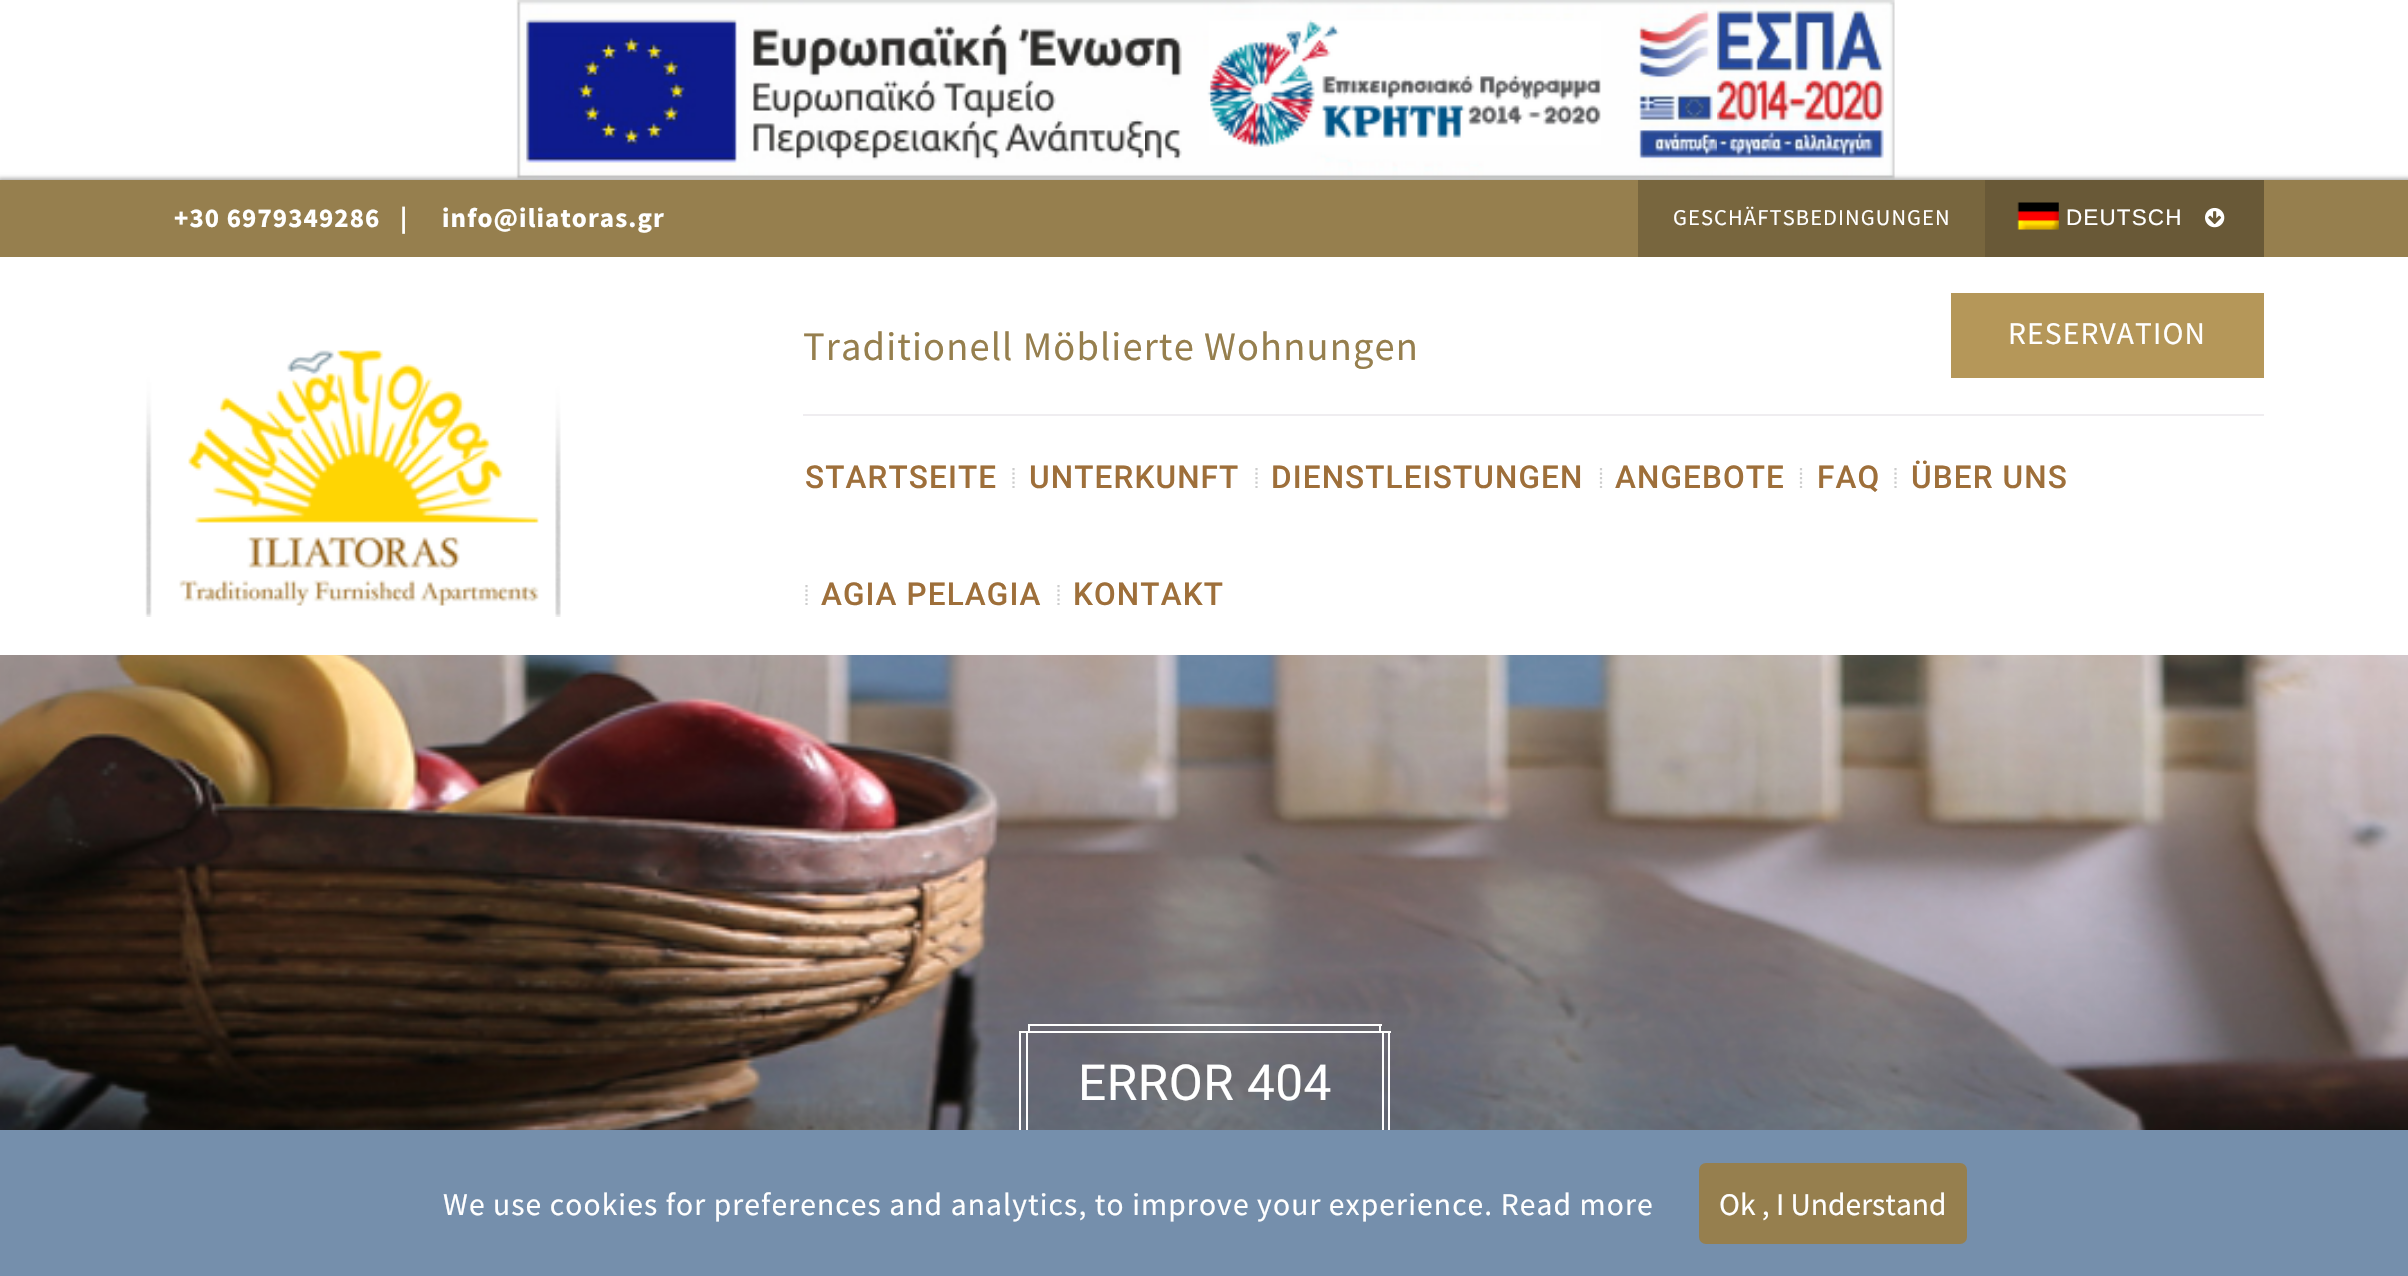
#include "include/core/SkBlurTypes.h"
#include "include/core/SkCanvas.h"
#include "include/core/SkData.h"
#include "include/core/SkFont.h"
#include "include/core/SkFontMgr.h"
#include "include/core/SkImage.h"
#include "include/core/SkMaskFilter.h"
#include "include/core/SkPaint.h"
#include "include/core/SkPathBuilder.h"
#include "include/core/SkTextBlob.h"
#include "include/effects/SkDashPathEffect.h"
#include "include/effects/SkGradientShader.h"
#include "include/utils/SkParsePath.h"

extern sk_sp<SkFontMgr> fontMgr;

void draw(SkCanvas* canvas) {
    SkPaint p;
    p.setAntiAlias(true);
    auto font = [&](const char* family, int weight, float size, bool italic = false) {
        SkFontStyle style(weight, SkFontStyle::kNormal_Width,
            italic ? SkFontStyle::kItalic_Slant : SkFontStyle::kUpright_Slant);
        SkFont result(fontMgr->matchFamilyStyle(family, style), size);
        result.setSubpixel(true);
        return result;
    };
    auto drawTracked = [&](const char* s, float x, float y, const SkFont& font, const SkPaint& ink, float letter, float word) {
        std::vector<SkGlyphID> glyphs(font.countText(s, strlen(s), SkTextEncoding::kUTF8));
        std::vector<float> xs(glyphs.size());
        font.textToGlyphs(s, strlen(s), SkTextEncoding::kUTF8, glyphs);
        font.getXPos(glyphs, xs, x);
        float extra = 0;
        for (size_t i = 0; i < glyphs.size(); i++) {
            xs[i] += extra;
            extra += letter + word * (glyphs[i] == font.unicharToGlyph(' '));
        }
        canvas->drawTextBlob(SkTextBlob::MakeFromPosHGlyphs(glyphs, xs, y, font), 0, 0, ink);
    };
    auto drawPhoto = [&](const char* path, float l, float t, float r, float b) {
        auto image = SkImages::DeferredFromEncodedData(SkData::MakeFromFileName(path));
        canvas->drawImageRect(image, SkRect::MakeLTRB(l, t, r, b), SkSamplingOptions());
    };
    canvas->clear(0xFFFFFFFF);
    drawPhoto("media/1.png", 516, 0, 1895, 180);
    p.setColor(0x4D000000);
    p.setMaskFilter(SkMaskFilter::MakeBlur(kNormal_SkBlurStyle, 2));
    canvas->drawRect(SkRect::MakeLTRB(-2, 178, 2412, 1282), p);
    p.setMaskFilter(nullptr);
    p.setColor(0xFF967F4E);
    canvas->drawRect(SkRect::MakeLTRB(0, 180, 2408, 257), p);
    auto font1 = font("Source Sans Pro", 700, 27);
    p.setColor(0xFFFFFFFF);
    {
        const struct { const char* s; float x, y; } items[] = {
            {"+30 6979349286", 174, 227},
            {"|", 400, 227},
            {"info@iliatoras.gr", 442, 227},
        };
        for (auto [s, x, y] : items) {
            drawTracked(s, x, y, font1, p, 1.12f, 0);
        }
    }
    p.setColor(0xFF78663E);
    canvas->drawRect(SkRect::MakeLTRB(1638, 180, 1985, 257), p);
    auto font2 = font("Source Sans Pro", 400, 22.5f);
    p.setColor(0xFFFFFFFF);
    drawTracked("GESCHÄFTSBEDINGUNGEN", 1673, 225, font2, p, 1.12f, 0);
    p.setColor(0xFF695937);
    canvas->drawRect(SkRect::MakeLTRB(1985, 180, 2264, 257), p);
    drawPhoto("media/2.png", 2017, 202, 2059, 230);
    auto font3 = font("Liberation Sans", 400, 22.5f);
    p.setColor(0xFFFFFFFF);
    drawTracked("DEUTSCH", 2066, 225, font3, p, 1.12f, 0);
    drawPhoto("media/3.png", 2205, 207, 2225, 228);
    canvas->drawRect(SkRect::MakeLTRB(0, 257, 2408, 655), p);
    drawPhoto("media/4.png", 145, 350, 561, 617);
    p.setColor(0xFFEFEDF0);
    canvas->drawRect(SkRect::MakeLTRB(803, 414, 2264, 416), p);
    auto font4 = font("Source Sans Pro", 400, 40.5f);
    p.setColor(0xFF967F4E);
    drawTracked("Traditionell Möblierte Wohnungen", 803, 360, font4, p, 1.12f, 0);
    p.setColor(0xFFB59759);
    canvas->drawRect(SkRect::MakeLTRB(1951, 293, 2264, 378), p);
    auto font5 = font("Source Sans Pro", 400, 31.5f);
    p.setColor(0xFFFFFFFF);
    drawTracked("RESERVATION", 2008, 344, font5, p, 1.12f, 0);
    auto font6 = font("Roboto", 500, 31.5f);
    p.setColor(0xFF9E6F3A);
    drawTracked("STARTSEITE", 805, 488, font6, p, 1.12f, 0);
    p.setStyle(SkPaint::kStroke_Style);
    p.setStrokeWidth(2.2f);
    p.setColor(0xFFCCCCCC);
    p.setPathEffect(SkDashPathEffect::Make({{2.25f, 2.25f}}, 0));
    canvas->drawPath(SkPathBuilder().moveTo(1013.5f, 468).lineTo(1013.5f, 488).detach(), p);
    p.setPathEffect(nullptr);
    p.setStyle(SkPaint::kFill_Style);
    p.setColor(0xFF9E6F3A);
    drawTracked("UNTERKUNFT", 1029, 488, font6, p, 1.12f, 0);
    p.setStyle(SkPaint::kStroke_Style);
    p.setColor(0xFFCCCCCC);
    p.setPathEffect(SkDashPathEffect::Make({{2.25f, 2.25f}}, 0));
    canvas->drawPath(SkPathBuilder().moveTo(1256.5f, 468).lineTo(1256.5f, 488).detach(), p);
    p.setPathEffect(nullptr);
    p.setStyle(SkPaint::kFill_Style);
    p.setColor(0xFF9E6F3A);
    drawTracked("DIENSTLEISTUNGEN", 1271, 488, font6, p, 1.12f, 0);
    p.setStyle(SkPaint::kStroke_Style);
    p.setColor(0xFFCCCCCC);
    p.setPathEffect(SkDashPathEffect::Make({{2.25f, 2.25f}}, 0));
    canvas->drawPath(SkPathBuilder().moveTo(1601, 468).lineTo(1601, 488).detach(), p);
    p.setPathEffect(nullptr);
    p.setStyle(SkPaint::kFill_Style);
    p.setColor(0xFF9E6F3A);
    drawTracked("ANGEBOTE", 1615, 488, font6, p, 1.12f, 0);
    p.setStyle(SkPaint::kStroke_Style);
    p.setColor(0xFFCCCCCC);
    p.setPathEffect(SkDashPathEffect::Make({{2.25f, 2.25f}}, 0));
    canvas->drawPath(SkPathBuilder().moveTo(1801, 468).lineTo(1801, 488).detach(), p);
    p.setPathEffect(nullptr);
    p.setStyle(SkPaint::kFill_Style);
    p.setColor(0xFF9E6F3A);
    drawTracked("FAQ", 1817, 488, font6, p, 1.12f, 0);
    p.setStyle(SkPaint::kStroke_Style);
    p.setColor(0xFFCCCCCC);
    p.setPathEffect(SkDashPathEffect::Make({{2.25f, 2.25f}}, 0));
    canvas->drawPath(SkPathBuilder().moveTo(1895.5f, 468).lineTo(1895.5f, 488).detach(), p);
    p.setPathEffect(nullptr);
    p.setStyle(SkPaint::kFill_Style);
    p.setColor(0xFF9E6F3A);
    drawTracked("ÜBER UNS", 1911, 488, font6, p, 1.12f, 0);
    p.setStyle(SkPaint::kStroke_Style);
    p.setColor(0xFFCCCCCC);
    p.setPathEffect(SkDashPathEffect::Make({{2.25f, 2.25f}}, 0));
    canvas->drawPath(SkPathBuilder().moveTo(806.5f, 585).lineTo(806.5f, 605).detach(), p);
    p.setPathEffect(nullptr);
    p.setStyle(SkPaint::kFill_Style);
    p.setColor(0xFF9E6F3A);
    drawTracked("AGIA PELAGIA", 821, 605, font6, p, 1.12f, 0);
    p.setStyle(SkPaint::kStroke_Style);
    p.setColor(0xFFCCCCCC);
    p.setPathEffect(SkDashPathEffect::Make({{2.25f, 2.25f}}, 0));
    canvas->drawPath(SkPathBuilder().moveTo(1058.5f, 585).lineTo(1058.5f, 605).detach(), p);
    p.setPathEffect(nullptr);
    p.setStyle(SkPaint::kFill_Style);
    p.setColor(0xFF9E6F3A);
    drawTracked("KONTAKT", 1073, 605, font6, p, 1.12f, 0);
    drawPhoto("media/5.png", 0, 655, 2408, 1130);
    p.setStyle(SkPaint::kStroke_Style);
    p.setStrokeWidth(2);
    p.setColor(0xFFFFFFFF);
    canvas->drawRect(SkRect::MakeLTRB(1027, 1032, 1383, 1135), p);
    p.setStyle(SkPaint::kFill_Style);
    {
        const struct { float l, t, r, b; SkColor color; } items[] = {
            {1019, 1031, 1026, 1033, 0xFFFFFFFF},
            {1019, 1031, 1021, 1132, 0xFFFFFFFF},
            {1028, 1024, 1382, 1026, 0xFFFFFFFF},
            {1379, 1024, 1381, 1031, 0xFFFFFFFF},
            {1028, 1024, 1030, 1031, 0xFFFFFFFF},
        };
        for (auto [l, t, r, b, color] : items) {
            p.setColor(color);
            canvas->drawRect(SkRect::MakeLTRB(l, t, r, b), p);
        }
    }
    auto font7 = font("Roboto", 400, 49.5f);
    drawTracked("ERROR 404", 1078, 1100, font7, p, 0.5f, 0);
    {
        const struct { float l, t, r, b; SkColor color; } items[] = {
            {1384, 1031, 1391, 1033, 0xFFFFFFFF},
            {1388, 1031, 1390, 1132, 0xFFFFFFFF},
            {0, 1130, 2408, 1276, 0xFF758FAC},
        };
        for (auto [l, t, r, b, color] : items) {
            p.setColor(color);
            canvas->drawRect(SkRect::MakeLTRB(l, t, r, b), p);
        }
    }
    p.setColor(0xFFFFFFFF);
    drawTracked("We use cookies for preferences and analytics, to improve your experience. Read more", 443, 1215, font5, p, 1.12f, 0);
    p.setColor(0xFF967F4E);
    canvas->drawRoundRect(SkRect::MakeLTRB(1699, 1163, 1967, 1244), 7, 7, p);
    p.setColor(0xFFFFFFFF);
    canvas->drawString("Ok , I Understand", 1719, 1215, font5, p);
}
